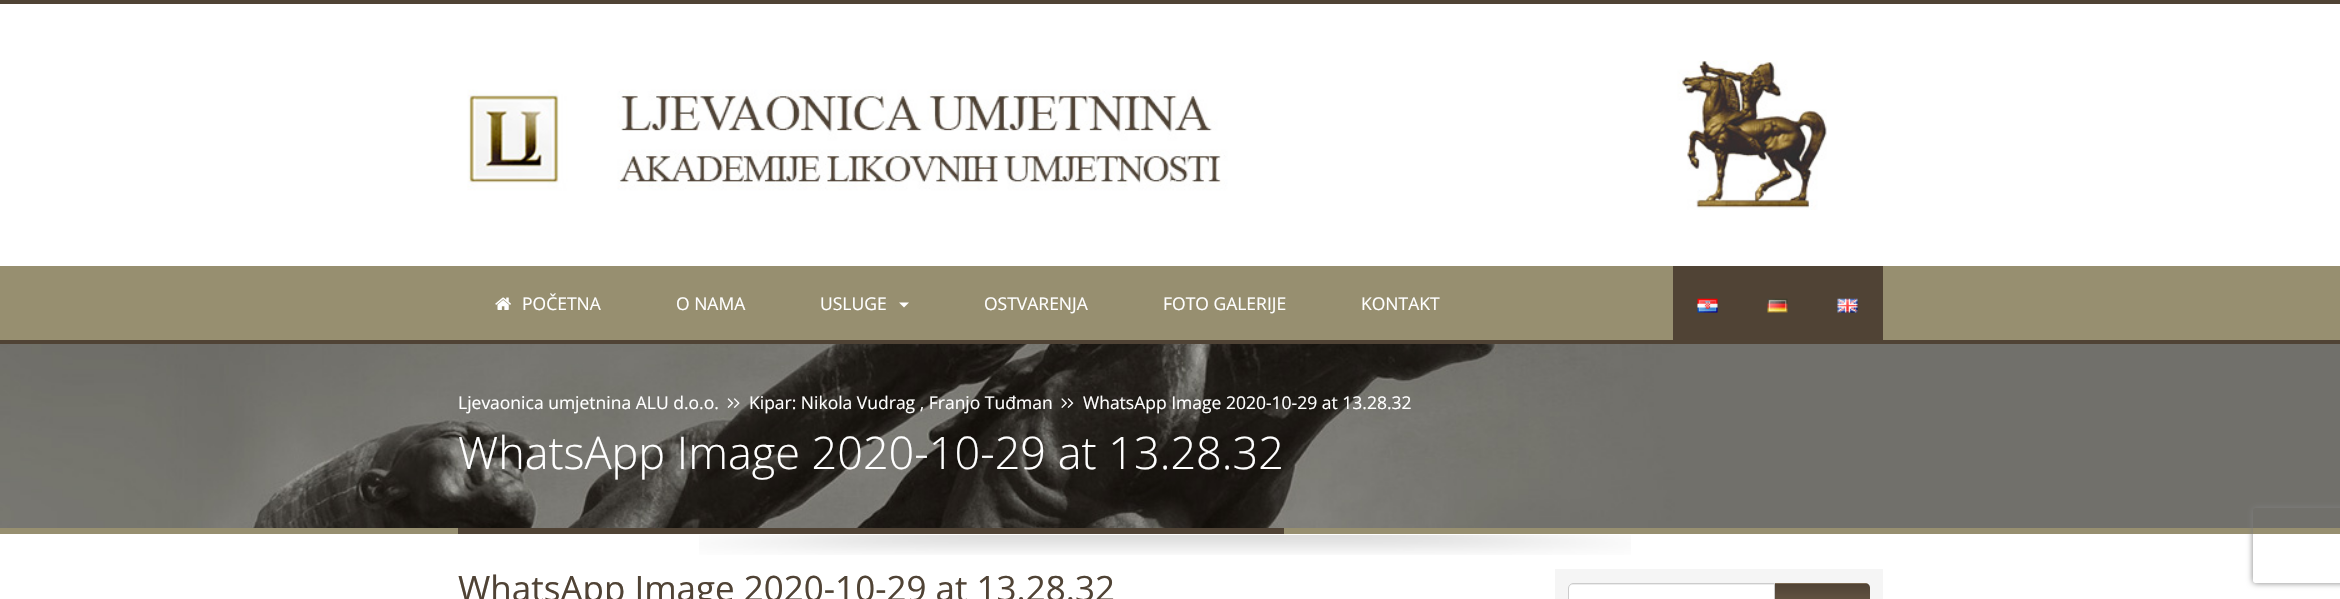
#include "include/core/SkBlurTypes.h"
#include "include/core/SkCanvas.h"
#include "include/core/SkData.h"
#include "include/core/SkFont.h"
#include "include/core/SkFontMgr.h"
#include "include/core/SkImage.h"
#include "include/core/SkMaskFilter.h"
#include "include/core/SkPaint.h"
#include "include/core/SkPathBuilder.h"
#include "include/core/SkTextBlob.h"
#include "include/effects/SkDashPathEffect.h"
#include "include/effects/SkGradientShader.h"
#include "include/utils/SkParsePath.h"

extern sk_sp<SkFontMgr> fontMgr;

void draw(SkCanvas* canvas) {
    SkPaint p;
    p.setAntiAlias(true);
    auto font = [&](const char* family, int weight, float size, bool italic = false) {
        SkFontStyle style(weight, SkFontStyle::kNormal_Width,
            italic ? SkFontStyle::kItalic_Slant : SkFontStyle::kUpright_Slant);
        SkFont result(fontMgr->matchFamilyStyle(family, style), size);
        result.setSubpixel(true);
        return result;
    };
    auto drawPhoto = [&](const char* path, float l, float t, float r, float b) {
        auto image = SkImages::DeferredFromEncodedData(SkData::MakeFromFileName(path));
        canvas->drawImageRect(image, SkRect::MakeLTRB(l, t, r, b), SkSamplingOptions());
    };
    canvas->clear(0xFFFFFFFF);
    p.setColor(0xFF504335);
    canvas->drawRect(SkRect::MakeLTRB(0, 0, 2340, 4), p);
    drawPhoto("media/1.png", 467, 60, 1827, 210);
    p.setColor(0xFF978F70);
    canvas->drawRect(SkRect::MakeLTRB(0, 266, 2340, 340), p);
    p.setColor(0xFF504335);
    canvas->drawRect(SkRect::MakeLTRB(0, 340, 2340, 344), p);
    drawPhoto("media/2.png", 495, 297, 511, 310);
    auto font1 = font("Open Sans", 400, 17.5f);
    p.setColor(0xFFFFFFFF);
    {
        const struct { const char* s; float x, y; } items[] = {
            {"POČETNA", 522, 310},
            {"O NAMA", 676, 310},
            {"USLUGE", 820, 310},
        };
        for (auto [s, x, y] : items) {
            canvas->drawString(s, x, y, font1, p);
        }
    }
    canvas->drawPath(SkPathBuilder().moveTo(899, 302.5f).lineTo(909, 302.5f).lineTo(904, 307.5f).close().detach(), p);
    {
        const struct { const char* s; float x, y; } items[] = {
            {"OSTVARENJA", 984, 310},
            {"FOTO GALERIJE", 1163, 310},
            {"KONTAKT", 1361, 310},
        };
        for (auto [s, x, y] : items) {
            canvas->drawString(s, x, y, font1, p);
        }
    }
    p.setColor(0xFF504335);
    canvas->drawRect(SkRect::MakeLTRB(1673, 266, 1883, 340), p);
    drawPhoto("media/3.png", 1697, 298, 1718, 313);
    drawPhoto("media/4.png", 1767, 298, 1788, 313);
    drawPhoto("media/5.png", 1837, 298, 1858, 313);
    drawPhoto("media/6.png", 0, 344, 2340, 528);
    p.setColor(0xFF978F70);
    canvas->drawRect(SkRect::MakeLTRB(0, 528, 2340, 534), p);
    p.setColor(0xFFFFFFFF);
    canvas->drawString("Ljevaonica umjetnina ALU d.o.o.", 458, 409, font1, p);
    drawPhoto("media/7.png", 727, 398, 734, 408);
    drawPhoto("media/8.png", 733, 398, 740, 408);
    canvas->drawString("Kipar: Nikola Vudrag , Franjo Tuđman", 749, 409, font1, p);
    drawPhoto("media/9.png", 1061, 398, 1067, 408);
    drawPhoto("media/10.png", 1067, 398, 1074, 408);
    canvas->drawString("WhatsApp Image 2020-10-29 at 13.28.32", 1083, 409, font1, p);
    p.setColor(0xFF504335);
    canvas->drawRect(SkRect::MakeLTRB(458, 528, 1284, 534), p);
    auto font2 = font("Open Sans", 300, 45);
    p.setColor(0xFFFFFFFF);
    canvas->drawString("WhatsApp Image 2020-10-29 at 13.28.32", 458, 469, font2, p);
    drawPhoto("media/11.png", 699, 535, 1631, 555);
    canvas->save();
    canvas->clipPath(SkPathBuilder(SkPathFillType::kEvenOdd).moveTo(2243, 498).lineTo(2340, 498).lineTo(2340, 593).lineTo(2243, 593).close().moveTo(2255.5f, 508).lineTo(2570.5f, 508).cubicTo(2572, 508, 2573, 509, 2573, 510.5f).lineTo(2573, 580.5f).cubicTo(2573, 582, 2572, 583, 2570.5f, 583).lineTo(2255.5f, 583).cubicTo(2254, 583, 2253, 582, 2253, 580.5f).lineTo(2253, 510.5f).cubicTo(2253, 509, 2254, 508, 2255.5f, 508).close().detach(), true);
    p.setColor(0xFF808080);
    p.setMaskFilter(SkMaskFilter::MakeBlur(kNormal_SkBlurStyle, 3));
    canvas->drawRoundRect(SkRect::MakeLTRB(2253, 508, 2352, 583), 2.5f, 2.5f, p);
    p.setMaskFilter(nullptr);
    canvas->restore();
    auto font3 = font("Open Sans", 400, 35);
    p.setColor(0xFF504335);
    canvas->drawString("WhatsApp Image 2020-10-29 at 13.28.32", 458, 601, font3, p);
    p.setColor(0xFFF5F5F5);
    canvas->drawRect(SkRect::MakeLTRB(1555, 569, 1883, 599), p);
    canvas->save();
    canvas->clipPath(SkPathBuilder().moveTo(1774, 583).lineTo(1865, 583).cubicTo(1868, 583, 1870, 585, 1870, 588).lineTo(1870, 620).cubicTo(1870, 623, 1868, 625, 1865, 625).lineTo(1774, 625).close().detach(), true);
    {
        const SkColor colors[] = {0xFF504335, 0xFF7C6953};
        const float stops[] = {0, 1};
        const SkPoint ends[] = {{1822, 544}, {1822, 584}};
        p.setShader(SkGradientShader::MakeLinear(ends, colors, stops, 2, SkTileMode::kClamp));
        p.setAlpha(255);
    }
    canvas->drawRect(SkRect::MakeLTRB(1774, 583, 1870, 584), p);
    canvas->restore();
    p.setShader(nullptr);
    p.setColor(0xFFFFFFFF);
    canvas->drawPath(SkPathBuilder().moveTo(1573, 583).lineTo(1775, 583).lineTo(1775, 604).lineTo(1573, 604).cubicTo(1570, 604, 1568, 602, 1568, 599).lineTo(1568, 588).cubicTo(1568, 585, 1570, 583, 1573, 583).close().detach(), p);
    p.setColor(0xFFECECEC);
    canvas->drawPath(SkPathBuilder().moveTo(1572, 585).lineTo(1774, 585).lineTo(1774, 584).lineTo(1571, 584).cubicTo(1569, 585, 1569, 587, 1569, 589).cubicTo(1569, 587, 1570, 585, 1572, 585).close().detach(), p);
    p.setStyle(SkPaint::kStroke_Style);
    p.setStrokeWidth(1);
    p.setColor(0xFFCCCCCC);
    canvas->drawPath(SkPathBuilder().moveTo(1573, 583.5f).lineTo(1774.5f, 583.5f).lineTo(1774.5f, 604.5f).lineTo(1573, 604.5f).cubicTo(1570.5f, 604.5f, 1568.5f, 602.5f, 1568.5f, 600).lineTo(1568.5f, 588).cubicTo(1568.5f, 585.5f, 1570.5f, 583.5f, 1573, 583.5f).close().detach(), p);
    canvas->save();
    canvas->clipPath(SkPathBuilder().moveTo(1774, 583).lineTo(1865, 583).cubicTo(1868, 583, 1870, 585, 1870, 588).lineTo(1870, 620).cubicTo(1870, 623, 1868, 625, 1865, 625).lineTo(1774, 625).close().detach(), true);
    p.setStyle(SkPaint::kFill_Style);
    {
        const SkColor colors[] = {0xFF504335, 0xFF7C6953};
        const float stops[] = {0, 1};
        const SkPoint ends[] = {{1822, 584}, {1822, 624}};
        p.setShader(SkGradientShader::MakeLinear(ends, colors, stops, 2, SkTileMode::kClamp));
        p.setAlpha(255);
    }
    canvas->drawRect(SkRect::MakeLTRB(1775, 584, 1870, 599), p);
    canvas->restore();
}
